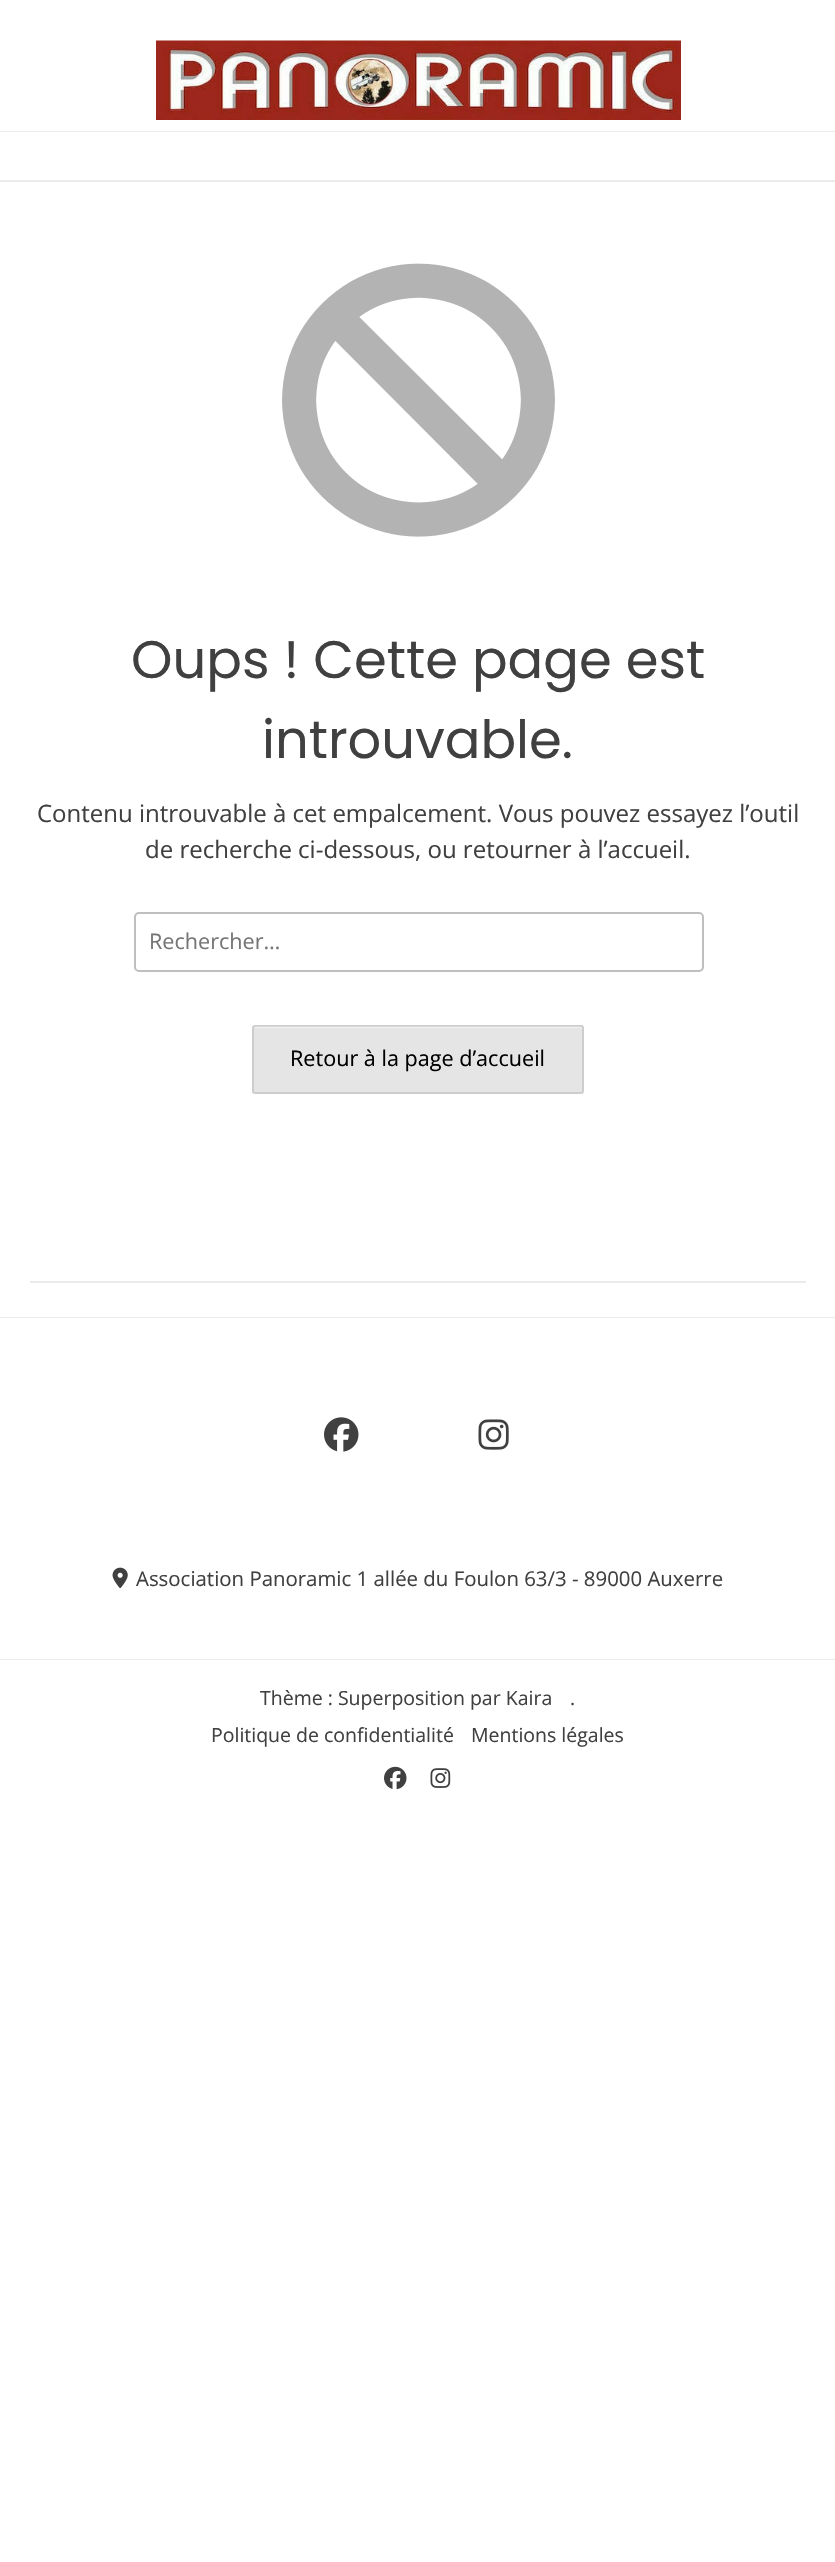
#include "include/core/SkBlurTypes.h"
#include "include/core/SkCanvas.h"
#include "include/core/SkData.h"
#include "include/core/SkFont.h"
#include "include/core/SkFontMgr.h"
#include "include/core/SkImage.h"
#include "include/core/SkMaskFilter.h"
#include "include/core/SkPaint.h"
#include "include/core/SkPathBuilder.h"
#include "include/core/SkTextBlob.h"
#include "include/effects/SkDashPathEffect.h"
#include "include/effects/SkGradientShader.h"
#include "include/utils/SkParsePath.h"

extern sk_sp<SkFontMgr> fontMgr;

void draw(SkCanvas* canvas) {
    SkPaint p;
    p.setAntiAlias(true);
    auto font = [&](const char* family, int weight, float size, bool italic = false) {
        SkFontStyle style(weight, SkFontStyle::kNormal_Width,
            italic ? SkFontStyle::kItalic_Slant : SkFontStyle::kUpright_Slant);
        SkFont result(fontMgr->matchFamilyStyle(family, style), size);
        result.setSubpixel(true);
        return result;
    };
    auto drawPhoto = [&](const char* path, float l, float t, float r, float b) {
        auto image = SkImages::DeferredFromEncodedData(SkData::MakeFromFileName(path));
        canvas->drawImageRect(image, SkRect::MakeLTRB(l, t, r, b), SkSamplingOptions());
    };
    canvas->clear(0xFFFFFFFF);
    p.setColor(0xFFEBEBEB);
    canvas->drawPath(SkPathBuilder().moveTo(0, 180).lineTo(0, 182).lineTo(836, 182).lineTo(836, 39).lineTo(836, 180).close().detach(), p);
    drawPhoto("media/1.png", 156, 40, 681, 120);
    canvas->drawPath(SkPathBuilder().moveTo(0, 131).lineTo(0, 132).lineTo(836, 132).lineTo(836, 179).lineTo(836, 131).close().detach(), p);
    canvas->drawPath(SkPathBuilder().moveTo(30, 1281).lineTo(30, 1283).lineTo(806, 1283).lineTo(806, 182).lineTo(806, 1281).close().detach(), p);
    drawPhoto("media/2.png", 282, 263, 555, 537);
    auto font1 = font("Poppins", 400, 52.75f);
    p.setColor(0xFF404040);
    canvas->drawString("Oups ! Cette page est", 131, 678, font1, p);
    canvas->drawString("introuvable.", 262, 758, font1, p);
    auto font2 = font("Open Sans", 400, 24);
    canvas->drawString("Contenu introuvable à cet empalcement. Vous pouvez essayez l’outil", 37, 822, font2, p);
    canvas->drawString("de recherche ci-dessous, ou retourner à l’accueil.", 145, 858, font2, p);
    p.setStyle(SkPaint::kStroke_Style);
    p.setStrokeWidth(2);
    p.setColor(0xFFBFBFBF);
    canvas->drawRoundRect(SkRect::MakeLTRB(135, 913, 703, 971), 4, 4, p);
    auto font3 = font("Open Sans", 400, 21.6f);
    p.setStyle(SkPaint::kFill_Style);
    p.setColor(0xFF757575);
    canvas->drawString("Rechercher…", 149, 949, font3, p);
    p.setColor(0x1A000000);
    canvas->drawRoundRect(SkRect::MakeLTRB(252, 1025, 584, 1094), 3, 3, p);
    p.setColor(0xFFF0F0F0);
    canvas->drawPath(SkPathBuilder().moveTo(255, 1028).lineTo(580, 1028).cubicTo(581, 1028, 582, 1028, 582, 1029).lineTo(582, 1027).lineTo(580, 1026).lineTo(256, 1026).cubicTo(254, 1026, 254, 1028, 254, 1029).cubicTo(254, 1028, 254, 1028, 255, 1028).close().detach(), p);
    p.setStyle(SkPaint::kStroke_Style);
    p.setColor(0x1A000000);
    canvas->drawRoundRect(SkRect::MakeLTRB(253, 1026, 583, 1093), 2, 2, p);
    p.setStyle(SkPaint::kFill_Style);
    p.setColor(0xFF000000);
    canvas->drawString("Retour à la page d’accueil", 290, 1066, font3, p);
    p.setColor(0xFFEBEBEB);
    canvas->drawPath(SkPathBuilder().moveTo(0, 1317).lineTo(0, 1318).lineTo(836, 1318).lineTo(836, 1823).lineTo(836, 1317).close().detach(), p);
    drawPhoto("media/3.png", 324, 1417, 359, 1452);
    drawPhoto("media/4.png", 478, 1419, 509, 1450);
    drawPhoto("media/5.png", 112, 1567, 128, 1588);
    auto font4 = font("Open Sans", 400, 20.4f);
    p.setColor(0xFF404040);
    canvas->drawString("Association Panoramic 1 allée du Foulon 63/3 - 89000 Auxerre", 136, 1586, font4, p);
    p.setColor(0xFFEBEBEB);
    canvas->drawPath(SkPathBuilder().moveTo(0, 1659).lineTo(0, 1660).lineTo(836, 1660).lineTo(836, 1823).lineTo(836, 1659).close().detach(), p);
    auto font5 = font("Open Sans", 400, 19.5f);
    p.setColor(0xFF404040);
    {
        const struct { const char* s; float x, y; } items[] = {
            {"Thème : Superposition par Kaira", 260, 1705},
            {".", 570, 1705},
            {"Politique de confidentialité", 211, 1742},
            {"Mentions légales", 471, 1742},
        };
        for (auto [s, x, y] : items) {
            canvas->drawString(s, x, y, font5, p);
        }
    }
    drawPhoto("media/6.png", 384, 1766, 407, 1790);
    drawPhoto("media/7.png", 430, 1768, 451, 1788);
}
